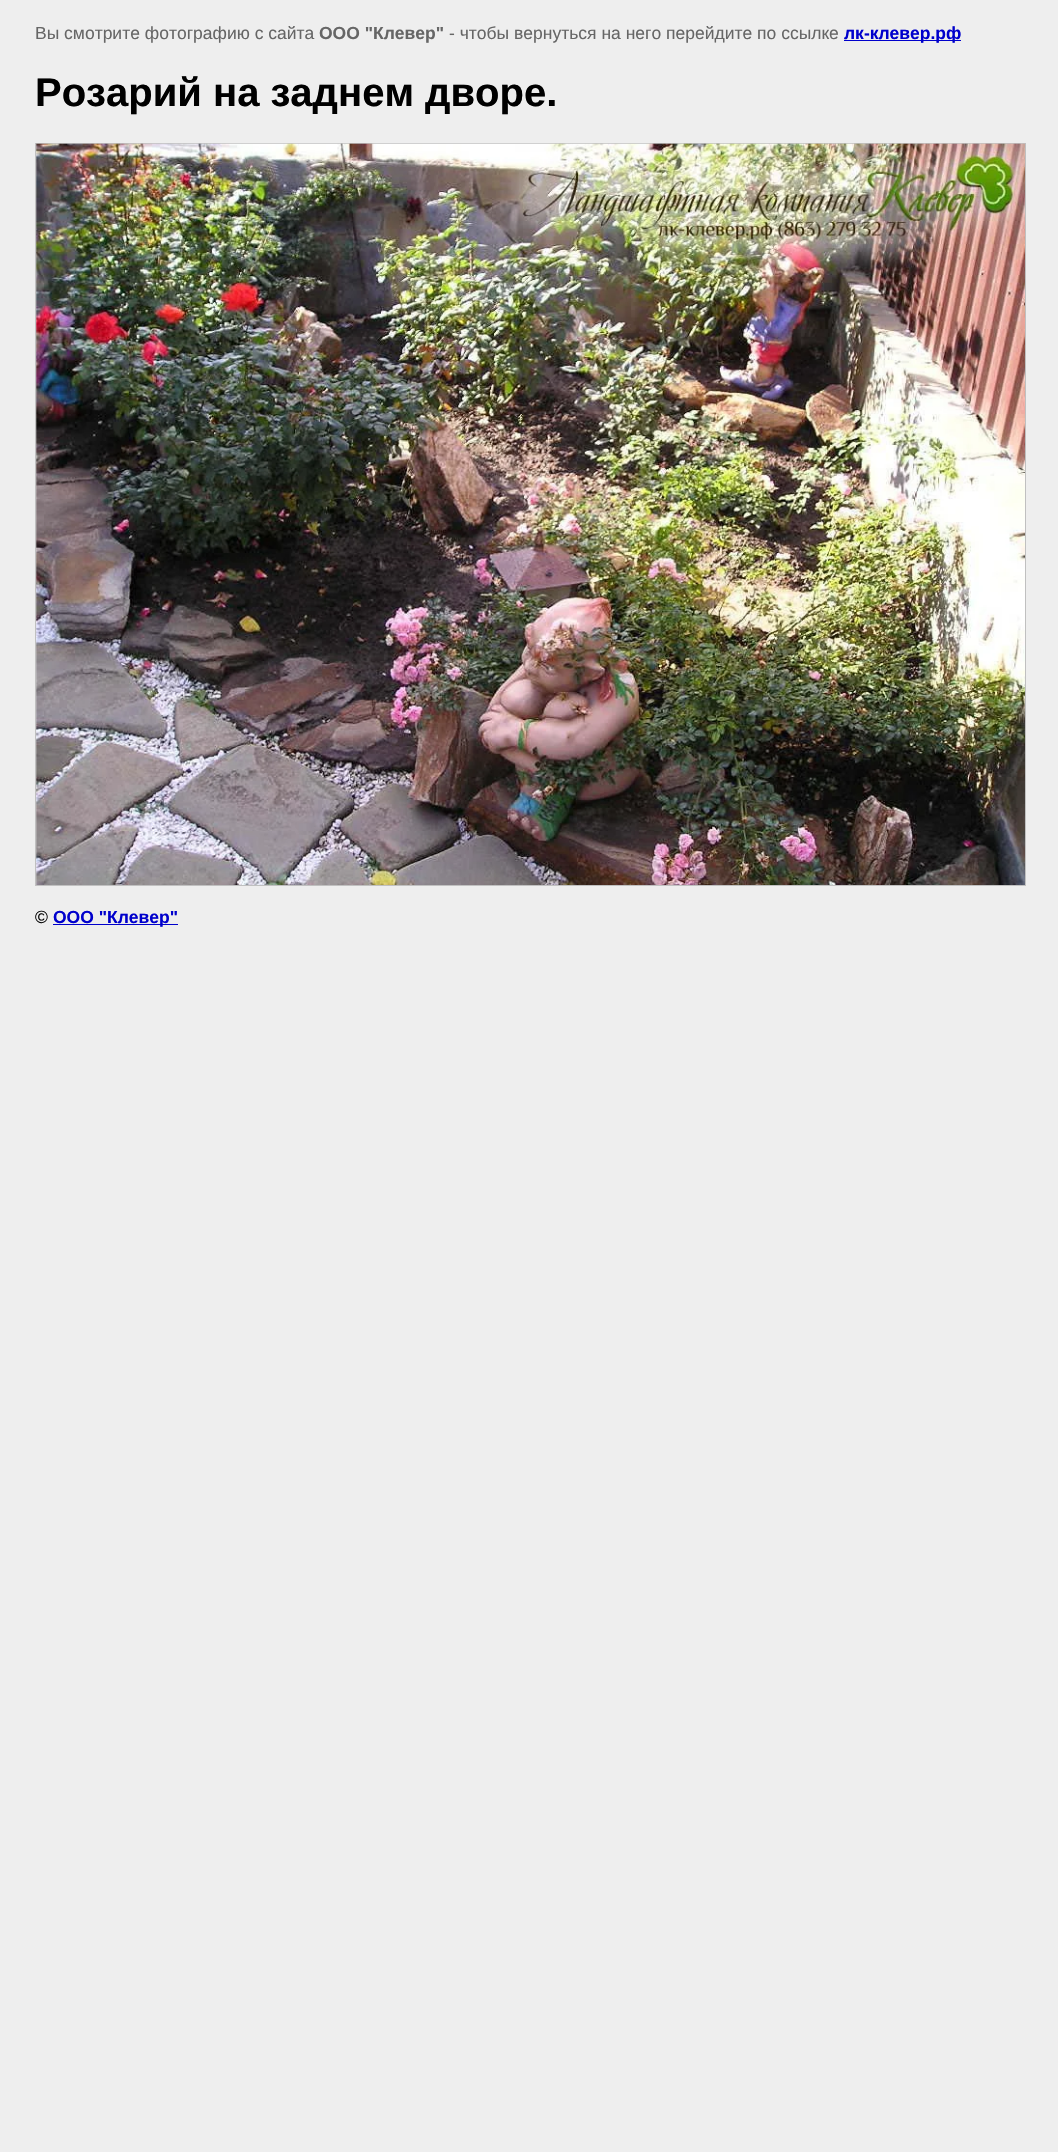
#include "include/core/SkBlurTypes.h"
#include "include/core/SkCanvas.h"
#include "include/core/SkData.h"
#include "include/core/SkFont.h"
#include "include/core/SkFontMgr.h"
#include "include/core/SkImage.h"
#include "include/core/SkMaskFilter.h"
#include "include/core/SkPaint.h"
#include "include/core/SkPathBuilder.h"
#include "include/core/SkTextBlob.h"
#include "include/effects/SkDashPathEffect.h"
#include "include/effects/SkGradientShader.h"
#include "include/utils/SkParsePath.h"

extern sk_sp<SkFontMgr> fontMgr;

void draw(SkCanvas* canvas) {
    SkPaint p;
    p.setAntiAlias(true);
    auto font = [&](const char* family, int weight, float size, bool italic = false) {
        SkFontStyle style(weight, SkFontStyle::kNormal_Width,
            italic ? SkFontStyle::kItalic_Slant : SkFontStyle::kUpright_Slant);
        SkFont result(fontMgr->matchFamilyStyle(family, style), size);
        result.setSubpixel(true);
        return result;
    };
    auto drawPhoto = [&](const char* path, float l, float t, float r, float b) {
        auto image = SkImages::DeferredFromEncodedData(SkData::MakeFromFileName(path));
        canvas->drawImageRect(image, SkRect::MakeLTRB(l, t, r, b), SkSamplingOptions());
    };
    canvas->clear(0xFFEEEEEE);
    auto font1 = font("Liberation Sans", 400, 17.5f);
    p.setColor(0xFF666666);
    canvas->drawString("Вы смотрите фотографию с сайта", 35, 39, font1, p);
    auto font2 = font("Liberation Sans", 700, 17.5f);
    canvas->drawString("ООО \"Клевер\"", 319, 39, font2, p);
    canvas->drawString("- чтобы вернуться на него перейдите по ссылке", 449, 39, font1, p);
    p.setColor(0xFF0000CC);
    canvas->drawRect(SkRect::MakeLTRB(844, 40, 961, 41), p);
    canvas->drawString("лк-клевер.рф", 844, 39, font2, p);
    auto font3 = font("Liberation Sans", 700, 40);
    p.setColor(0xFF000000);
    canvas->drawString("Розарий на заднем дворе.", 35, 106, font3, p);
    p.setStyle(SkPaint::kStroke_Style);
    p.setStrokeWidth(1);
    p.setColor(0xFFC0C0C0);
    canvas->drawRect(SkRect::MakeLTRB(35.5f, 143.5f, 1025.5f, 885.5f), p);
    drawPhoto("media/1.png", 36, 143, 1025, 885);
    p.setStyle(SkPaint::kFill_Style);
    p.setColor(0xFF000000);
    canvas->drawString("©", 35, 923, font1, p);
    p.setColor(0xFF0000CC);
    canvas->drawRect(SkRect::MakeLTRB(53, 924, 178, 925), p);
    canvas->drawString("ООО \"Клевер\"", 53, 923, font2, p);
}
